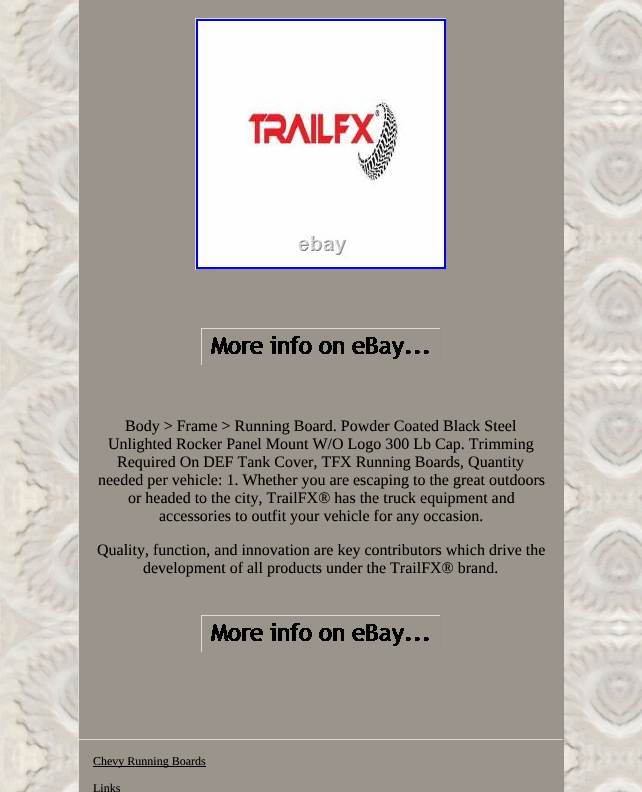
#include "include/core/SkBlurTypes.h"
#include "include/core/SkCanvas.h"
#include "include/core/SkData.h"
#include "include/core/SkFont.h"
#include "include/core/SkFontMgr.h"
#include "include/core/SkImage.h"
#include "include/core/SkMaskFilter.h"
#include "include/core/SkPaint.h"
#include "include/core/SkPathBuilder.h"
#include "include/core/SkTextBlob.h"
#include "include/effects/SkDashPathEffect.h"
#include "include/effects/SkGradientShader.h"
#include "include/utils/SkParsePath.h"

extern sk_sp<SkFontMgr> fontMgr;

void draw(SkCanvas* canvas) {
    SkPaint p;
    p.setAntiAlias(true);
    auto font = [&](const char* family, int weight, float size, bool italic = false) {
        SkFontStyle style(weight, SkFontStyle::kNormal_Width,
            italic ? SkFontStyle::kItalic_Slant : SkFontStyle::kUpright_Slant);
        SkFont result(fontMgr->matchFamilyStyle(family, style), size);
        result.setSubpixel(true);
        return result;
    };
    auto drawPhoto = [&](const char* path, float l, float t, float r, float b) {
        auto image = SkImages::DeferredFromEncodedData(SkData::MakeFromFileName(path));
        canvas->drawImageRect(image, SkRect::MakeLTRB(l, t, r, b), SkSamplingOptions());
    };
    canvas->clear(0xFFFFFFFF);
    drawPhoto("media/1.png", 0, 0, 642, 792);
    {
        const struct { float l, t, r, b; SkColor color; } items[] = {
            {79, 0, 563, 738, 0xFF9B948A},
            {563, 0, 564, 739, 0xFF94928C},
            {78, 738, 564, 739, 0xFF94928C},
            {78, 0, 79, 739, 0xFFDEDBD2},
            {195, 18, 447, 19, 0xFFDEDBD2},
            {446, 18, 447, 270, 0xFF94928C},
            {195, 269, 447, 270, 0xFF94928C},
            {195, 18, 196, 270, 0xFFDEDBD2},
        };
        for (auto [l, t, r, b, color] : items) {
            p.setColor(color);
            canvas->drawRect(SkRect::MakeLTRB(l, t, r, b), p);
        }
    }
    drawPhoto("media/2.png", 196, 19, 446, 269);
    {
        const struct { float l, t, r, b; SkColor color; } items[] = {
            {201, 328, 441, 329, 0xFFDEDBD2},
            {440, 328, 441, 365, 0xFF94928C},
            {201, 364, 441, 365, 0xFF94928C},
            {201, 328, 202, 365, 0xFFDEDBD2},
        };
        for (auto [l, t, r, b, color] : items) {
            p.setColor(color);
            canvas->drawRect(SkRect::MakeLTRB(l, t, r, b), p);
        }
    }
    drawPhoto("media/3.png", 211, 336, 429, 359);
    auto font1 = font("Liberation Serif", 400, 16);
    p.setColor(0xFF000000);
    {
        const struct { const char* s; float x, y; } items[] = {
            {"Body > Frame > Running Board. Powder Coated Black Steel", 125, 431},
            {"Unlighted Rocker Panel Mount W/O Logo 300 Lb Cap. Trimming", 108, 449},
            {"Required On DEF Tank Cover, TFX Running Boards, Quantity", 117, 467},
            {"needed per vehicle: 1. Whether you are escaping to the great outdoors", 98, 485},
            {"or headed to the city, TrailFX® has the truck equipment and", 128, 503},
            {"accessories to outfit your vehicle for any occasion.", 159, 521},
            {"Quality, function, and innovation are key contributors which drive the", 97, 555},
            {"development of all products under the TrailFX® brand.", 143, 573},
        };
        for (auto [s, x, y] : items) {
            canvas->drawString(s, x, y, font1, p);
        }
    }
    {
        const struct { float l, t, r, b; SkColor color; } items[] = {
            {201, 615, 441, 616, 0xFFDEDBD2},
            {440, 615, 441, 652, 0xFF94928C},
            {201, 651, 441, 652, 0xFF94928C},
            {201, 615, 202, 652, 0xFFDEDBD2},
        };
        for (auto [l, t, r, b, color] : items) {
            p.setColor(color);
            canvas->drawRect(SkRect::MakeLTRB(l, t, r, b), p);
        }
    }
    drawPhoto("media/3.png", 211, 623, 429, 646);
    {
        const struct { float l, t, r, b; SkColor color; } items[] = {
            {79, 740, 563, 792, 0xFF9B948A},
            {78, 739, 564, 740, 0xFFDEDBD2},
            {563, 739, 564, 792, 0xFF94928C},
            {78, 739, 79, 792, 0xFFDEDBD2},
            {93, 766, 206, 767, 0xFF000000},
        };
        for (auto [l, t, r, b, color] : items) {
            p.setColor(color);
            canvas->drawRect(SkRect::MakeLTRB(l, t, r, b), p);
        }
    }
    auto font2 = font("Liberation Serif", 400, 12);
    canvas->drawString("Chevy Running Boards", 93, 765, font2, p);
    canvas->drawString("Links", 93, 792, font2, p);
}
